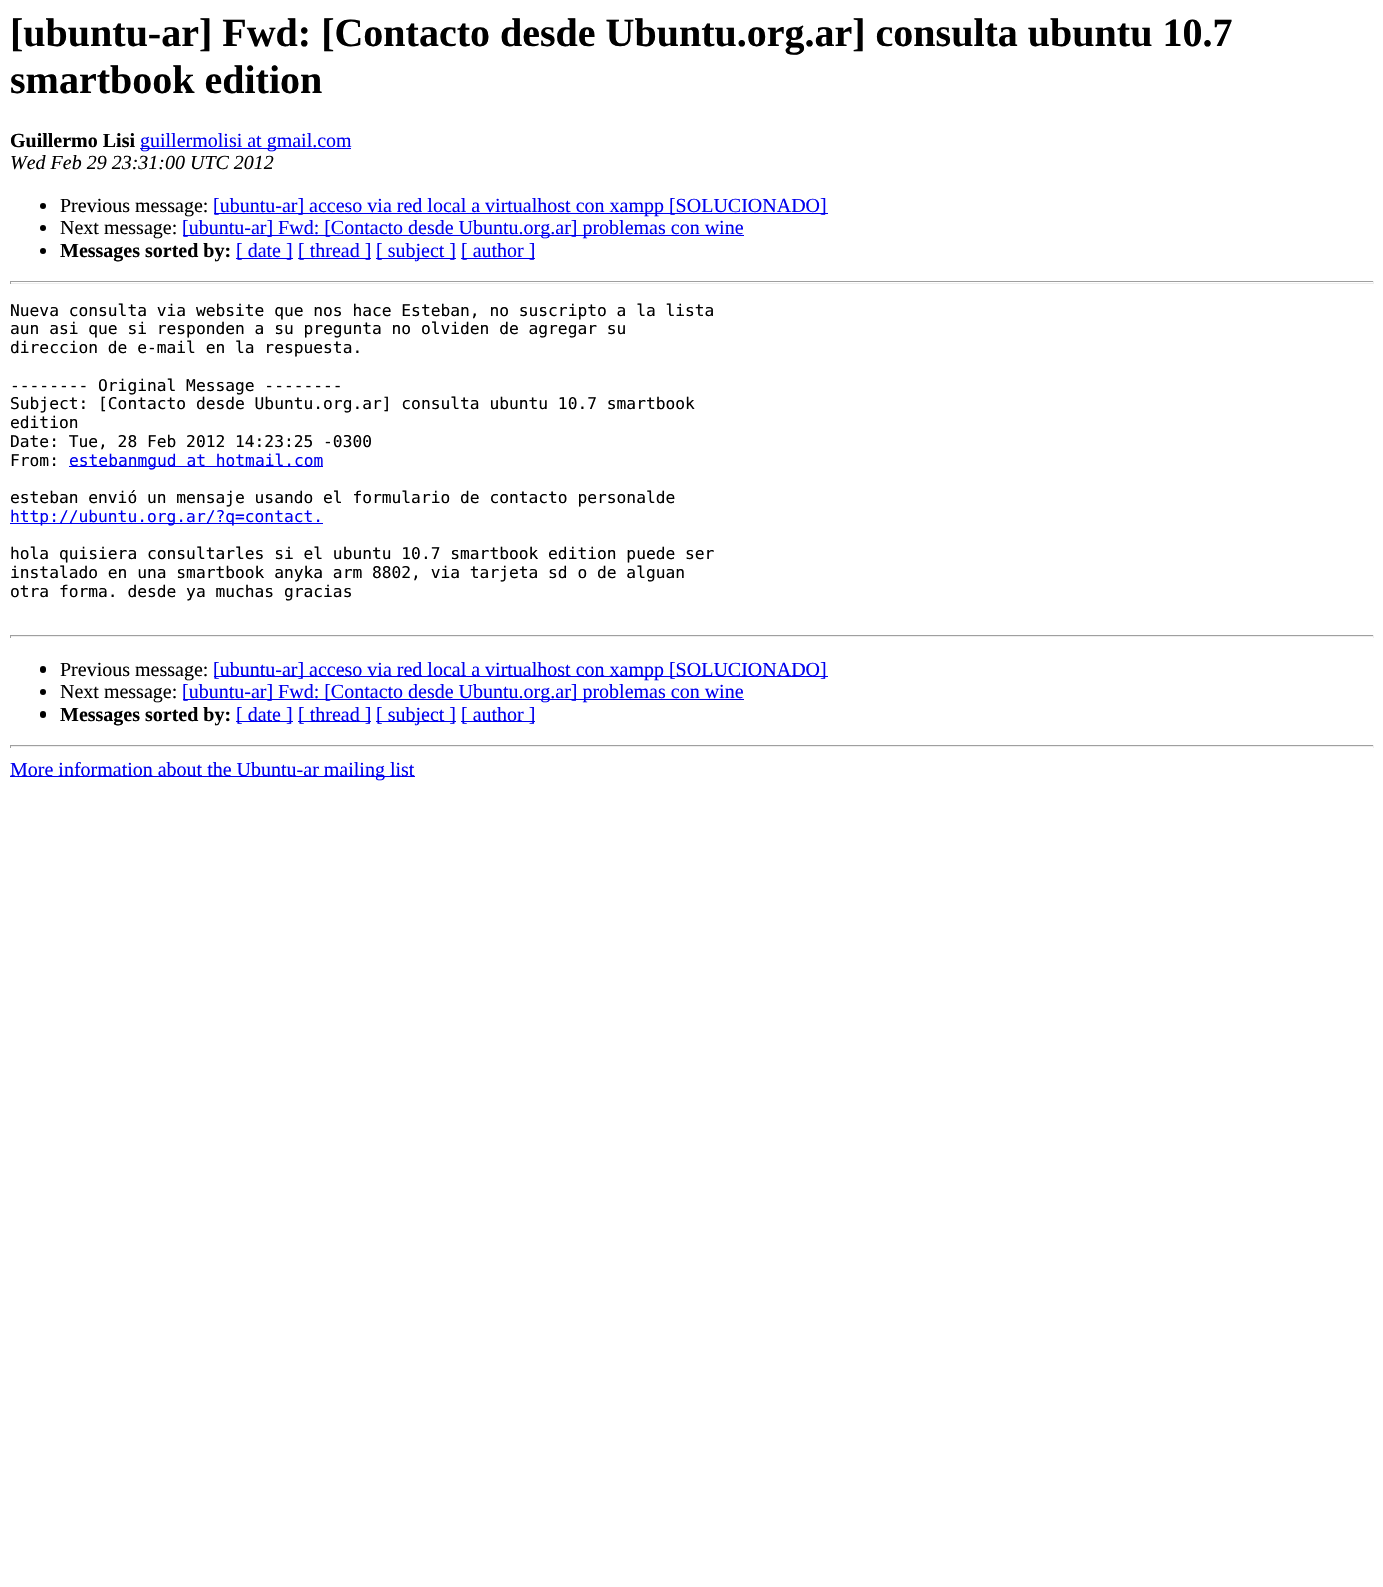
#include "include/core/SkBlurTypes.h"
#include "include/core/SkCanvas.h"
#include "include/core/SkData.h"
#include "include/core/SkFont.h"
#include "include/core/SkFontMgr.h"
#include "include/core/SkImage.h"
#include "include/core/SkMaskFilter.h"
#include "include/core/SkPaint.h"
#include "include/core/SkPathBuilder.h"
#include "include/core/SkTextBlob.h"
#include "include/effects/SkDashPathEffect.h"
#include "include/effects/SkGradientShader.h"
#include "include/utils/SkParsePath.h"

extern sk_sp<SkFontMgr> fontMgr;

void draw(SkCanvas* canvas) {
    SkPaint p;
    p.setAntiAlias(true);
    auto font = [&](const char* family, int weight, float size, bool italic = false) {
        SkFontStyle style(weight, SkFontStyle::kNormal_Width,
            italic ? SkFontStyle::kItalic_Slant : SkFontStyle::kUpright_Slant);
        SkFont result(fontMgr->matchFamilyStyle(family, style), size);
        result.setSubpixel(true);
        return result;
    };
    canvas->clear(0xFFFFFFFF);
    auto font1 = font("Liberation Serif", 700, 40);
    p.setColor(0xFF000000);
    canvas->drawString("[ubuntu-ar] Fwd: [Contacto desde Ubuntu.org.ar] consulta ubuntu 10.7", 10, 46, font1, p);
    canvas->drawString("smartbook edition", 10, 93, font1, p);
    auto font2 = font("Liberation Serif", 700, 20);
    canvas->drawString("Guillermo Lisi", 10, 147, font2, p);
    p.setColor(0xFF0000EE);
    canvas->drawRect(SkRect::MakeLTRB(140, 148, 351, 149), p);
    auto font3 = font("Liberation Serif", 400, 20);
    canvas->drawString("guillermolisi at gmail.com", 140, 147, font3, p);
    auto font4 = font("Liberation Serif", 400, 20, true);
    p.setColor(0xFF000000);
    canvas->drawString("Wed Feb 29 23:31:00 UTC 2012", 10, 169, font4, p);
    canvas->drawCircle(43, 206, 3, p);
    canvas->drawString("Previous message:", 60, 212, font3, p);
    p.setColor(0xFF0000EE);
    canvas->drawRect(SkRect::MakeLTRB(214, 213, 828, 214), p);
    canvas->drawString("[ubuntu-ar] acceso via red local a virtualhost con xampp [SOLUCIONADO]", 213, 212, font3, p);
    p.setColor(0xFF000000);
    canvas->drawCircle(43, 228, 3, p);
    canvas->drawString("Next message:", 60, 234, font3, p);
    p.setColor(0xFF0000EE);
    canvas->drawRect(SkRect::MakeLTRB(183, 235, 744, 236), p);
    canvas->drawString("[ubuntu-ar] Fwd: [Contacto desde Ubuntu.org.ar] problemas con wine", 182, 234, font3, p);
    p.setColor(0xFF000000);
    canvas->drawCircle(43, 251, 3, p);
    canvas->drawString("Messages sorted by:", 60, 257, font2, p);
    p.setColor(0xFF0000EE);
    canvas->drawRect(SkRect::MakeLTRB(236, 258, 293, 259), p);
    canvas->drawString("[ date ]", 236, 257, font3, p);
    canvas->drawRect(SkRect::MakeLTRB(298, 258, 371, 259), p);
    canvas->drawString("[ thread ]", 298, 257, font3, p);
    canvas->drawRect(SkRect::MakeLTRB(376, 258, 456, 259), p);
    canvas->drawString("[ subject ]", 376, 257, font3, p);
    canvas->drawRect(SkRect::MakeLTRB(461, 258, 535, 259), p);
    canvas->drawString("[ author ]", 461, 257, font3, p);
    {
        const struct { float l, t, r, b; SkColor color; } items[] = {
            {10, 281, 1374, 282, 0xFF9F9F9F},
            {1373, 281, 1374, 284, 0xFFEEEEEE},
            {10, 283, 1374, 284, 0xFFEEEEEE},
            {10, 281, 11, 284, 0xFF9F9F9F},
        };
        for (auto [l, t, r, b, color] : items) {
            p.setColor(color);
            canvas->drawRect(SkRect::MakeLTRB(l, t, r, b), p);
        }
    }
    auto font5 = font("DejaVu Sans Mono", 400, 16.25f);
    p.setColor(0xFF000000);
    {
        const struct { const char* s; float x, y; } items[] = {
            {"Nueva consulta via website que nos hace Esteban, no suscripto a la lista", 10, 316},
            {"aun asi que si responden a su pregunta no olviden de agregar su", 10, 334},
            {"direccion de e-mail en la respuesta.", 10, 353},
            {"-------- Original Message --------", 10, 391},
            {"Subject: [Contacto desde Ubuntu.org.ar] consulta ubuntu 10.7 smartbook", 10, 409},
            {"edition", 10, 428},
            {"Date: Tue, 28 Feb 2012 14:23:25 -0300", 10, 447},
            {"From:", 10, 466},
        };
        for (auto [s, x, y] : items) {
            canvas->drawString(s, x, y, font5, p);
        }
    }
    p.setColor(0xFF0000EE);
    canvas->drawRect(SkRect::MakeLTRB(69, 466, 323, 467), p);
    canvas->drawString("estebanmgud at hotmail.com", 69, 466, font5, p);
    p.setColor(0xFF000000);
    canvas->drawString("esteban envió un mensaje usando el formulario de contacto personalde", 10, 503, font5, p);
    p.setColor(0xFF0000EE);
    canvas->drawRect(SkRect::MakeLTRB(10, 523, 323, 524), p);
    canvas->drawString("http://ubuntu.org.ar/?q=contact.", 10, 522, font5, p);
    p.setColor(0xFF000000);
    {
        const struct { const char* s; float x, y; } items[] = {
            {"hola quisiera consultarles si el ubuntu 10.7 smartbook edition puede ser", 10, 559},
            {"instalado en una smartbook anyka arm 8802, via tarjeta sd o de alguan", 10, 578},
            {"otra forma. desde ya muchas gracias", 10, 597},
        };
        for (auto [s, x, y] : items) {
            canvas->drawString(s, x, y, font5, p);
        }
    }
    {
        const struct { float l, t, r, b; SkColor color; } items[] = {
            {10, 635, 1374, 636, 0xFF9F9F9F},
            {1373, 635, 1374, 638, 0xFFEEEEEE},
            {10, 636, 1374, 637, 0xFFEEEEEE},
            {10, 635, 11, 638, 0xFF9F9F9F},
        };
        for (auto [l, t, r, b, color] : items) {
            p.setColor(color);
            canvas->drawRect(SkRect::MakeLTRB(l, t, r, b), p);
        }
    }
    p.setColor(0xFF000000);
    canvas->drawRoundRect(SkRect::MakeLTRB(40, 666, 46, 673), 3, 3, p);
    canvas->drawString("Previous message:", 60, 676, font3, p);
    p.setColor(0xFF0000EE);
    canvas->drawRect(SkRect::MakeLTRB(214, 676, 828, 677), p);
    canvas->drawString("[ubuntu-ar] acceso via red local a virtualhost con xampp [SOLUCIONADO]", 213, 676, font3, p);
    p.setColor(0xFF000000);
    canvas->drawCircle(43, 692, 3, p);
    canvas->drawString("Next message:", 60, 698, font3, p);
    p.setColor(0xFF0000EE);
    canvas->drawRect(SkRect::MakeLTRB(183, 699, 744, 700), p);
    canvas->drawString("[ubuntu-ar] Fwd: [Contacto desde Ubuntu.org.ar] problemas con wine", 182, 698, font3, p);
    p.setColor(0xFF000000);
    canvas->drawRoundRect(SkRect::MakeLTRB(40, 711, 46, 718), 3, 3, p);
    canvas->drawString("Messages sorted by:", 60, 721, font2, p);
    p.setColor(0xFF0000EE);
    canvas->drawRect(SkRect::MakeLTRB(236, 721, 293, 722), p);
    canvas->drawString("[ date ]", 236, 721, font3, p);
    canvas->drawRect(SkRect::MakeLTRB(298, 721, 371, 722), p);
    canvas->drawString("[ thread ]", 298, 721, font3, p);
    canvas->drawRect(SkRect::MakeLTRB(376, 721, 456, 722), p);
    canvas->drawString("[ subject ]", 376, 721, font3, p);
    canvas->drawRect(SkRect::MakeLTRB(461, 721, 535, 722), p);
    canvas->drawString("[ author ]", 461, 721, font3, p);
    {
        const struct { float l, t, r, b; SkColor color; } items[] = {
            {10, 745, 1374, 746, 0xFF9F9F9F},
            {1373, 745, 1374, 748, 0xFFEEEEEE},
            {10, 746, 1374, 747, 0xFFEEEEEE},
            {10, 745, 11, 748, 0xFF9F9F9F},
            {10, 776, 415, 777, 0xFF0000EE},
        };
        for (auto [l, t, r, b, color] : items) {
            p.setColor(color);
            canvas->drawRect(SkRect::MakeLTRB(l, t, r, b), p);
        }
    }
    canvas->drawString("More information about the Ubuntu-ar mailing list", 10, 776, font3, p);
}
